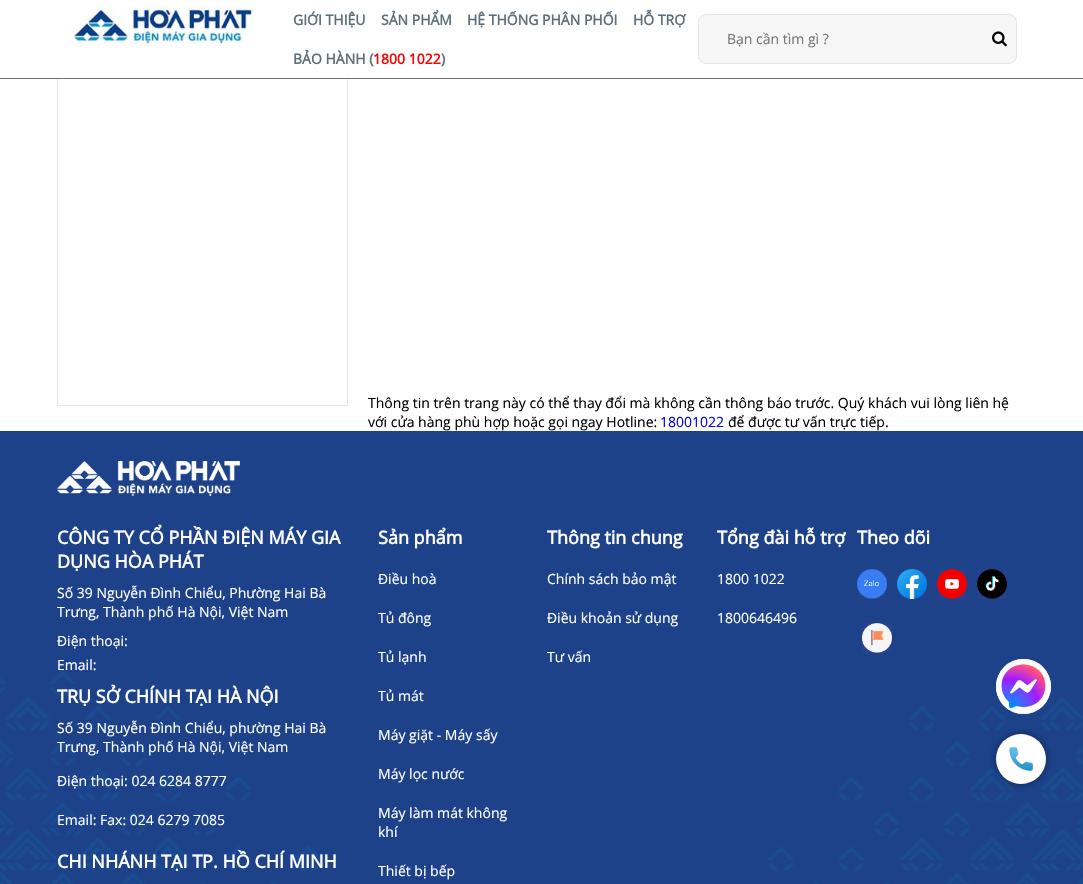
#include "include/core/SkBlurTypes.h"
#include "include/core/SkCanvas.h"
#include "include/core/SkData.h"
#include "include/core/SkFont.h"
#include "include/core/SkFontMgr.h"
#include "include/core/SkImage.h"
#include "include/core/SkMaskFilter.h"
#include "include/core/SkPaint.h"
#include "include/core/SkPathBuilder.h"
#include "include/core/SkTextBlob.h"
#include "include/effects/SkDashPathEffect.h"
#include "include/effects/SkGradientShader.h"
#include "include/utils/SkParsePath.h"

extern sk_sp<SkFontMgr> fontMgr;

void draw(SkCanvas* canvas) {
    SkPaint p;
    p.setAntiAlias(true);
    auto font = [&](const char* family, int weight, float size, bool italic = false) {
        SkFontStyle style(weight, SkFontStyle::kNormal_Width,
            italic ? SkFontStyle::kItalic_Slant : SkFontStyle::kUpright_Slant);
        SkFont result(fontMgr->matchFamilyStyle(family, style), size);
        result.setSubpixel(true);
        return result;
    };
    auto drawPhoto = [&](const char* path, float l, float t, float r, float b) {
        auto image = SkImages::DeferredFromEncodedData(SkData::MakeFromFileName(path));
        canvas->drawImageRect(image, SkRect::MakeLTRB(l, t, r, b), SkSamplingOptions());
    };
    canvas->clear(0xFFFFFFFF);
    p.setStyle(SkPaint::kStroke_Style);
    p.setStrokeWidth(1);
    p.setColor(0xFFE4E4E4);
    canvas->drawRect(SkRect::MakeLTRB(57.5f, -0.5f, 347.5f, 405.5f), p);
    p.setStyle(SkPaint::kFill_Style);
    p.setColor(0xFFFFFFFF);
    canvas->drawRect(SkRect::MakeLTRB(57, 0, 348, 78), p);
    p.setColor(0xFF707070);
    canvas->drawRect(SkRect::MakeLTRB(0, 78, 1083, 79), p);
    drawPhoto("media/1.png", 69, 6, 254, 45);
    auto font1 = font("Open Sans", 700, 14);
    p.setColor(0xFF5D6F7A);
    {
        const struct { const char* s; float x, y; } items[] = {
            {"GIỚI THIỆU", 293, 25},
            {"SẢN PHẨM", 381, 25},
            {"HỆ THỐNG PHÂN PHỐI", 467, 25},
            {"HỖ TRỢ", 633, 25},
            {"BẢO HÀNH (", 293, 64},
        };
        for (auto [s, x, y] : items) {
            canvas->drawString(s, x, y, font1, p);
        }
    }
    p.setColor(0xFFFF0000);
    canvas->drawString("1800 1022", 373, 64, font1, p);
    p.setColor(0xFF5D6F7A);
    canvas->drawString(")", 441, 64, font1, p);
    p.setColor(0xFFF6F6F6);
    canvas->drawRoundRect(SkRect::MakeLTRB(698.5f, 14.5f, 1016.5f, 63.5f), 7.5f, 7.5f, p);
    p.setStyle(SkPaint::kStroke_Style);
    p.setColor(0xFFE5E5E5);
    canvas->drawRoundRect(SkRect::MakeLTRB(698.5f, 14.5f, 1016.5f, 63.5f), 7.5f, 7.5f, p);
    auto font2 = font("Open Sans", 400, 14);
    p.setStyle(SkPaint::kFill_Style);
    p.setColor(0xFF757575);
    canvas->drawString("Bạn cần tìm gì ?", 727, 44, font2, p);
    drawPhoto("media/2.png", 992, 31, 1007, 47);
    p.setColor(0xFF000000);
    canvas->drawString("Thông tin trên trang này có thể thay đổi mà không cần thông báo trước. Quý khách vui lòng liên hệ", 368, 408, font2, p);
    canvas->drawString("với cửa hàng phù hợp hoặc gọi ngay Hotline:", 368, 427, font2, p);
    p.setColor(0xFF0000FF);
    canvas->drawString("18001022", 660, 427, font2, p);
    p.setColor(0xFF000000);
    canvas->drawString("để được tư vấn trực tiếp.", 728, 427, font2, p);
    p.setColor(0xFF1D428A);
    canvas->drawRect(SkRect::MakeLTRB(0, 431, 1083, 884), p);
    drawPhoto("media/3.png", 57, 461, 240, 496);
    auto font3 = font("Open Sans", 700, 18);
    p.setColor(0xFFFFFFFF);
    canvas->drawString("CÔNG TY CỔ PHẦN ĐIỆN MÁY GIA", 57, 544, font3, p);
    canvas->drawString("DỤNG HÒA PHÁT", 57, 568, font3, p);
    {
        const struct { const char* s; float x, y; } items[] = {
            {"Số 39 Nguyễn Đình Chiểu, Phường Hai Bà", 57, 598},
            {"Trưng, Thành phố Hà Nội, Việt Nam", 57, 617},
            {"Điện thoại:", 57, 646},
            {"Email:", 57, 670},
        };
        for (auto [s, x, y] : items) {
            canvas->drawString(s, x, y, font2, p);
        }
    }
    drawPhoto("media/9.png", 0, 671, 321, 884);
    canvas->drawString("TRỤ SỞ CHÍNH TẠI HÀ NỘI", 57, 703, font3, p);
    {
        const struct { const char* s; float x, y; } items[] = {
            {"Số 39 Nguyễn Đình Chiểu, phường Hai Bà", 57, 733},
            {"Trưng, Thành phố Hà Nội, Việt Nam", 57, 752},
            {"Điện thoại: 024 6284 8777", 57, 786},
            {"Email: Fax: 024 6279 7085", 57, 825},
        };
        for (auto [s, x, y] : items) {
            canvas->drawString(s, x, y, font2, p);
        }
    }
    canvas->drawString("CHI NHÁNH TẠI TP. HỒ CHÍ MINH", 57, 868, font3, p);
    canvas->drawString("Sản phẩm", 378, 544, font3, p);
    {
        const struct { const char* s; float x, y; } items[] = {
            {"Điều hoà", 378, 584},
            {"Tủ đông", 378, 623},
            {"Tủ lạnh", 378, 662},
            {"Tủ mát", 378, 701},
            {"Máy giặt - Máy sấy", 378, 740},
            {"Máy lọc nước", 378, 779},
            {"Máy làm mát không", 378, 818},
            {"khí", 378, 837},
            {"Thiết bị bếp", 378, 876},
        };
        for (auto [s, x, y] : items) {
            canvas->drawString(s, x, y, font2, p);
        }
    }
    canvas->drawString("Thông tin chung", 547, 544, font3, p);
    {
        const struct { const char* s; float x, y; } items[] = {
            {"Chính sách bảo mật", 547, 584},
            {"Điều khoản sử dụng", 547, 623},
            {"Tư vấn", 547, 662},
        };
        for (auto [s, x, y] : items) {
            canvas->drawString(s, x, y, font2, p);
        }
    }
    canvas->drawString("Tổng đài hỗ trợ", 717, 544, font3, p);
    canvas->drawString("1800 1022", 717, 584, font2, p);
    canvas->drawString("1800646496", 717, 623, font2, p);
    canvas->drawString("Theo dõi", 857, 544, font3, p);
    drawPhoto("media/4.png", 857, 569, 887, 599);
    drawPhoto("media/5.png", 897, 569, 927, 599);
    drawPhoto("media/6.png", 937, 569, 967, 599);
    drawPhoto("media/7.png", 977, 569, 1007, 599);
    drawPhoto("media/8.png", 862, 623, 892, 653);
    drawPhoto("media/10.png", 768, 697, 1083, 884);
    canvas->drawCircle(1023.5f, 686.5f, 27.5f, p);
    drawPhoto("media/11.png", 996, 659, 1051, 714);
    p.setColor(0x33000000);
    p.setMaskFilter(SkMaskFilter::MakeBlur(kNormal_SkBlurStyle, 2.5f));
    canvas->drawRoundRect(SkRect::MakeLTRB(993, 731, 1049, 787), 28, 28, p);
    p.setMaskFilter(nullptr);
    p.setColor(0xFFFFFFFF);
    canvas->drawCircle(1021, 759, 25, p);
    drawPhoto("media/12.png", 1008, 746, 1034, 772);
}
